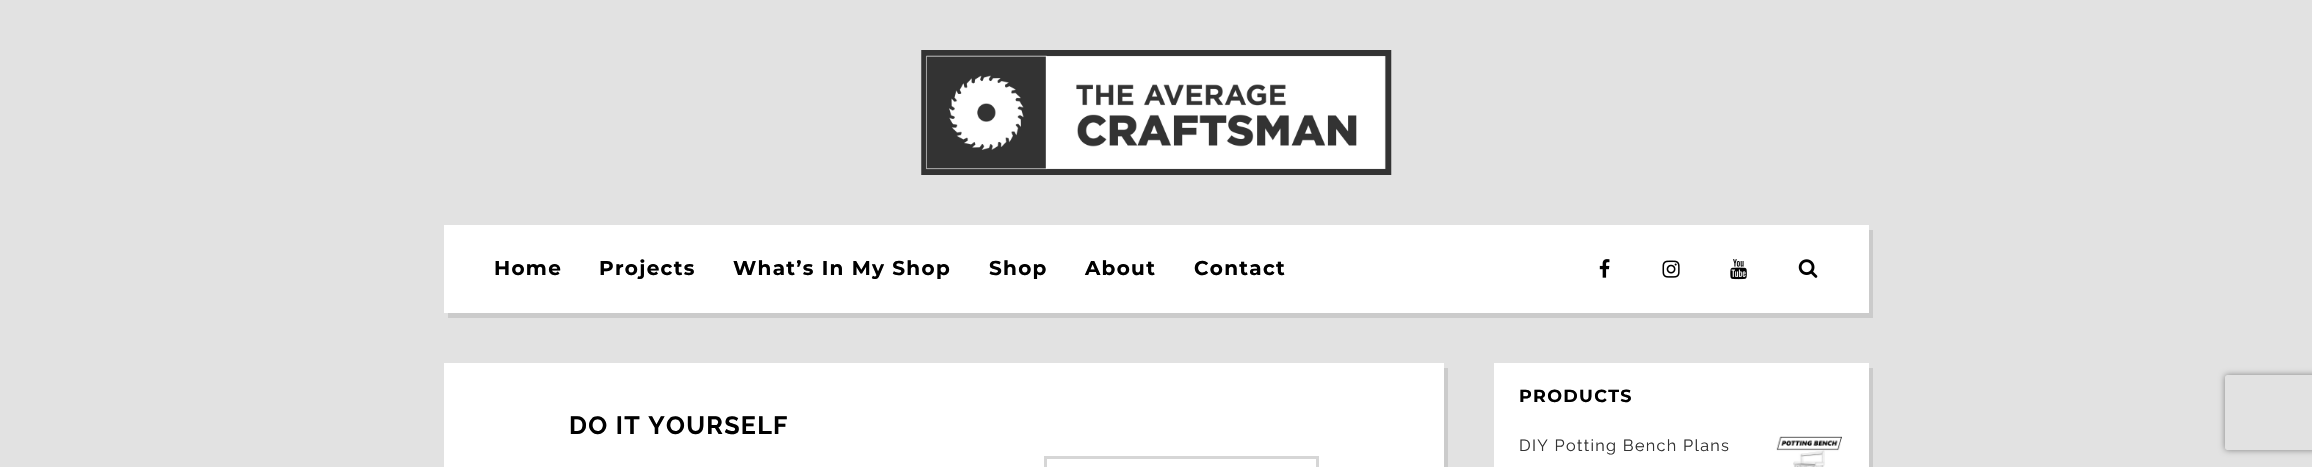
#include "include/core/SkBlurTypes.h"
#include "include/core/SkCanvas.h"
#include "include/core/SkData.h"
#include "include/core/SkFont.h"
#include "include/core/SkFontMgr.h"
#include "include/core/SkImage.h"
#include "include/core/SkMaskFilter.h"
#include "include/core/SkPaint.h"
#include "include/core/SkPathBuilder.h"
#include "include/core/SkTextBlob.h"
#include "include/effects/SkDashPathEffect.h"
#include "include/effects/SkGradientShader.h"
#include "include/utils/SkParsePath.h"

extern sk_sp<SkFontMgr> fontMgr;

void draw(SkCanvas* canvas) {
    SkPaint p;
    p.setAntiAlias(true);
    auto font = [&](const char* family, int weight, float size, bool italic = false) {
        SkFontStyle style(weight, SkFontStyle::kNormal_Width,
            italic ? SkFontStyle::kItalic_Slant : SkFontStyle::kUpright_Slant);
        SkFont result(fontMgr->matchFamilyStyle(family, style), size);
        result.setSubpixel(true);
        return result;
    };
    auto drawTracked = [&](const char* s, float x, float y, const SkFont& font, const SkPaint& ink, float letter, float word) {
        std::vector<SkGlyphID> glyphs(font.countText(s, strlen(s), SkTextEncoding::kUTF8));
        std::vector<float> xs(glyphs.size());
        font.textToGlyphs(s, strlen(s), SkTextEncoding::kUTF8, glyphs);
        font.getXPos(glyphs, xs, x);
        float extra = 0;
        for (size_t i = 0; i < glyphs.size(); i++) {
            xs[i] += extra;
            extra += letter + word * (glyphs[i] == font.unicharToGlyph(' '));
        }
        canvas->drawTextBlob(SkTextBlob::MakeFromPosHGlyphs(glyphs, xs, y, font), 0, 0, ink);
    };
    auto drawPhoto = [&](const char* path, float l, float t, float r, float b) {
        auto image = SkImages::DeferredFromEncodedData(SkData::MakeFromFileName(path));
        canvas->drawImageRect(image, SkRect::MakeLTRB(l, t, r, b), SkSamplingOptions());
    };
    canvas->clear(0xFFE2E2E2);
    drawPhoto("media/1.png", 921, 50, 1392, 175);
    p.setColor(0xFFCBCBCB);
    canvas->drawPath(SkPathBuilder().moveTo(448, 312).lineTo(448, 318).lineTo(1873, 318).lineTo(1873, 230).lineTo(1869, 230).lineTo(1869, 312).close().detach(), p);
    p.setColor(0xFFFFFFFF);
    canvas->drawRect(SkRect::MakeLTRB(444, 225, 1869, 313), p);
    auto font1 = font("Montserrat", 700, 20);
    p.setColor(0xFF000000);
    {
        const struct { const char* s; float x, y; } items[] = {
            {"Home", 494, 275},
            {"Projects", 599, 275},
            {"What’s In My Shop", 733, 275},
            {"Shop", 989, 275},
            {"About", 1085, 275},
            {"Contact", 1194, 275},
        };
        for (auto [s, x, y] : items) {
            drawTracked(s, x, y, font1, p, 1.3f, 0);
        }
    }
    drawPhoto("media/2.png", 1599, 259, 1610, 278);
    drawPhoto("media/3.png", 1662, 260, 1680, 278);
    drawPhoto("media/4.png", 1730, 259, 1747, 280);
    drawPhoto("media/5.png", 1798, 259, 1818, 278);
    p.setColor(0xFFCBCBCB);
    canvas->drawPath(SkPathBuilder().moveTo(448, 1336).lineTo(448, 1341).lineTo(1448, 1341).lineTo(1448, 368).lineTo(1444, 368).lineTo(1444, 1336).close().detach(), p);
    p.setColor(0xFFFFFFFF);
    canvas->drawRect(SkRect::MakeLTRB(444, 363, 1444, 467), p);
    auto font2 = font("Raleway", 700, 25);
    p.setColor(0xFF000000);
    drawTracked("DO IT YOURSELF", 569, 434, font2, p, 1.3f, 0);
    p.setStyle(SkPaint::kStroke_Style);
    p.setStrokeWidth(3);
    p.setColor(0xFFD6D6D6);
    canvas->drawRect(SkRect::MakeLTRB(1045.5f, 457.5f, 1317.5f, 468.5f), p);
    p.setStyle(SkPaint::kFill_Style);
    p.setColor(0xFFCBCBCB);
    canvas->drawPath(SkPathBuilder().moveTo(1498, 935).lineTo(1498, 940).lineTo(1873, 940).lineTo(1873, 368).lineTo(1869, 368).lineTo(1869, 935).close().detach(), p);
    p.setColor(0xFFFFFFFF);
    canvas->drawRect(SkRect::MakeLTRB(1494, 363, 1869, 467), p);
    auto font3 = font("Montserrat", 700, 17.5f);
    p.setColor(0xFF000000);
    drawTracked("PRODUCTS", 1519, 402, font3, p, 1.3f, 0);
    auto font4 = font("Raleway", 400, 16.25f);
    p.setColor(0xFF333333);
    drawTracked("DIY Potting Bench Plans", 1519, 451, font4, p, 1.3f, 0);
    drawPhoto("media/6.png", 1776, 436, 1842, 467);
    canvas->save();
    canvas->clipPath(SkPathBuilder(SkPathFillType::kEvenOdd).moveTo(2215, 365).lineTo(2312, 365).lineTo(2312, 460).lineTo(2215, 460).close().moveTo(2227.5f, 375).lineTo(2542.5f, 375).cubicTo(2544, 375, 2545, 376, 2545, 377.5f).lineTo(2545, 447.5f).cubicTo(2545, 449, 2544, 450, 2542.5f, 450).lineTo(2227.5f, 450).cubicTo(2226, 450, 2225, 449, 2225, 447.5f).lineTo(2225, 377.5f).cubicTo(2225, 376, 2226, 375, 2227.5f, 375).close().detach(), true);
    p.setColor(0xFF808080);
    p.setMaskFilter(SkMaskFilter::MakeBlur(kNormal_SkBlurStyle, 3));
    canvas->drawRoundRect(SkRect::MakeLTRB(2225, 375, 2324, 450), 2.5f, 2.5f, p);
    p.setMaskFilter(nullptr);
    canvas->restore();
}
